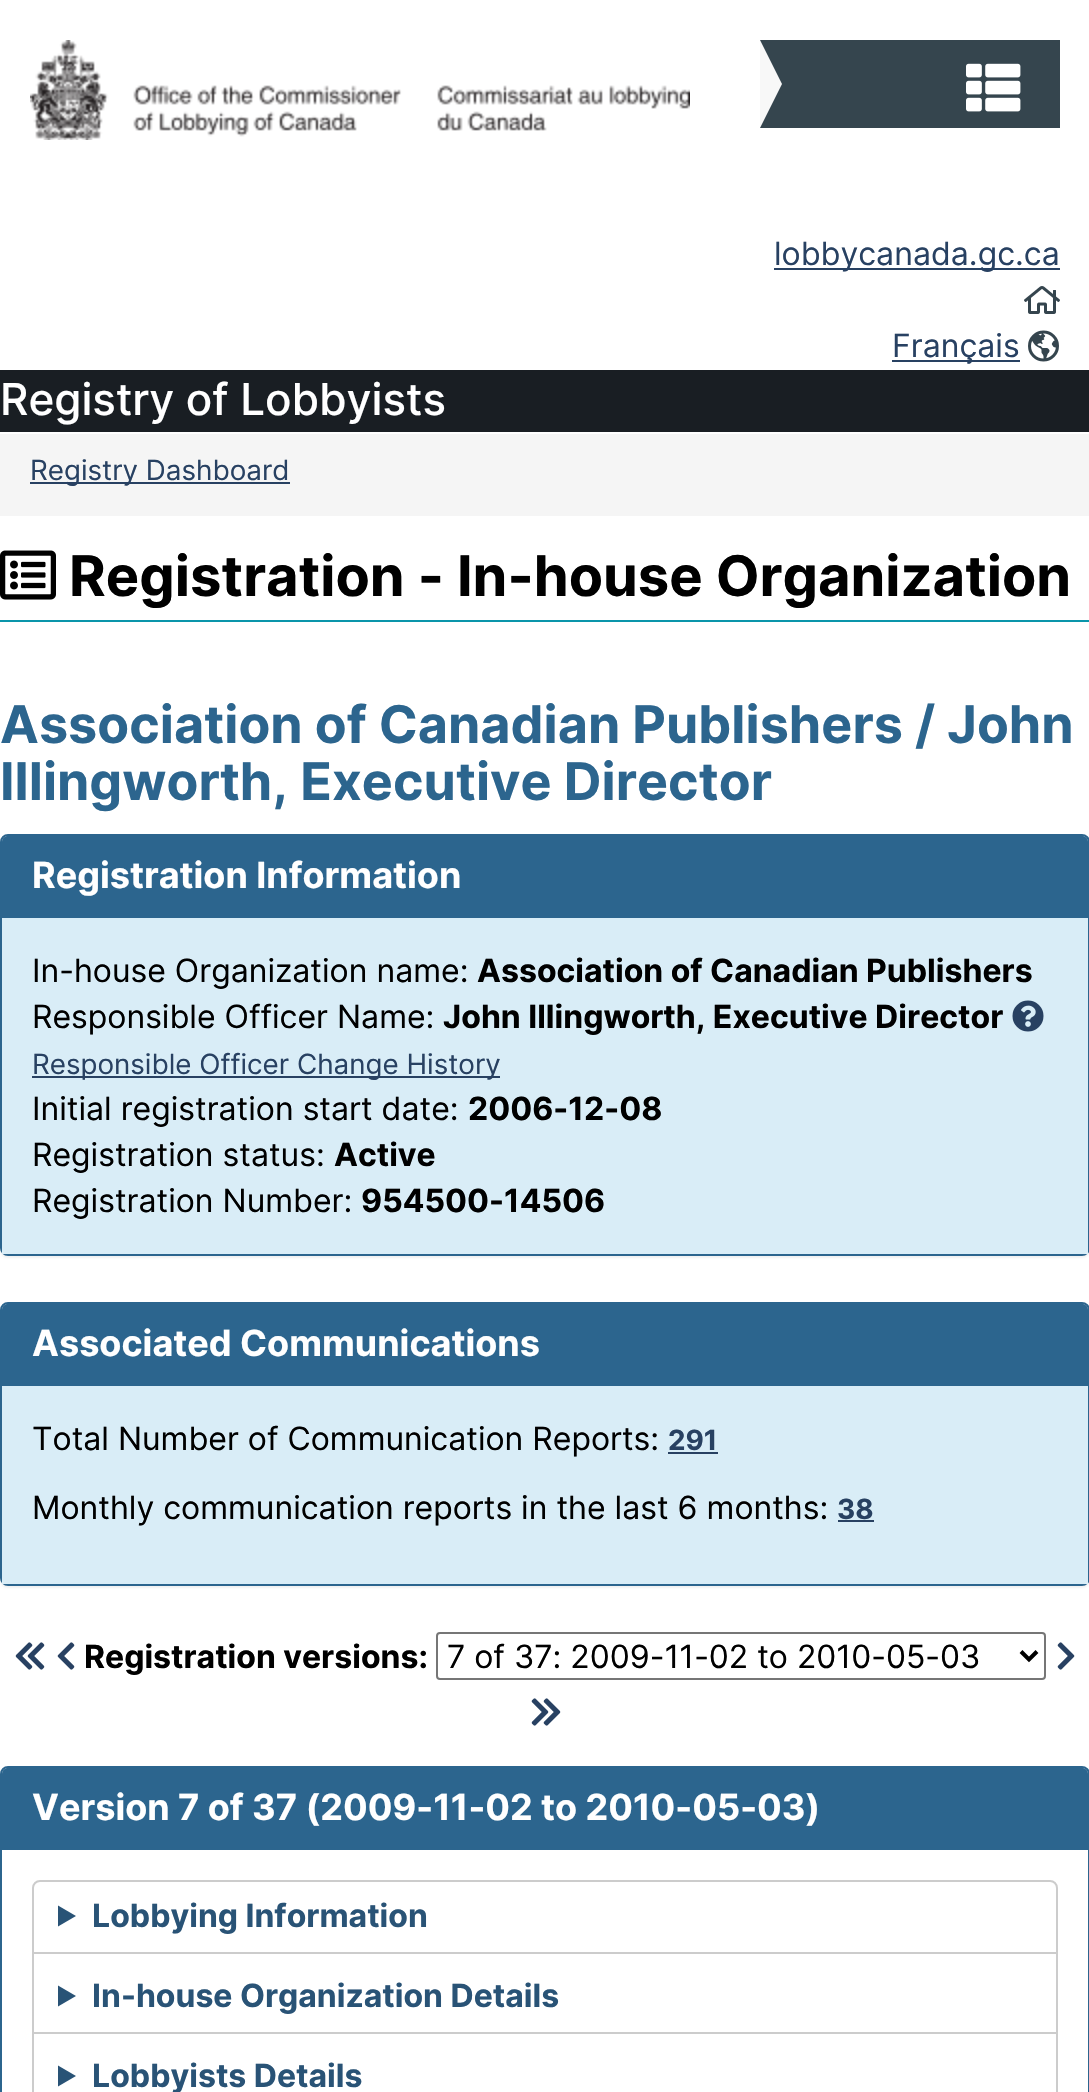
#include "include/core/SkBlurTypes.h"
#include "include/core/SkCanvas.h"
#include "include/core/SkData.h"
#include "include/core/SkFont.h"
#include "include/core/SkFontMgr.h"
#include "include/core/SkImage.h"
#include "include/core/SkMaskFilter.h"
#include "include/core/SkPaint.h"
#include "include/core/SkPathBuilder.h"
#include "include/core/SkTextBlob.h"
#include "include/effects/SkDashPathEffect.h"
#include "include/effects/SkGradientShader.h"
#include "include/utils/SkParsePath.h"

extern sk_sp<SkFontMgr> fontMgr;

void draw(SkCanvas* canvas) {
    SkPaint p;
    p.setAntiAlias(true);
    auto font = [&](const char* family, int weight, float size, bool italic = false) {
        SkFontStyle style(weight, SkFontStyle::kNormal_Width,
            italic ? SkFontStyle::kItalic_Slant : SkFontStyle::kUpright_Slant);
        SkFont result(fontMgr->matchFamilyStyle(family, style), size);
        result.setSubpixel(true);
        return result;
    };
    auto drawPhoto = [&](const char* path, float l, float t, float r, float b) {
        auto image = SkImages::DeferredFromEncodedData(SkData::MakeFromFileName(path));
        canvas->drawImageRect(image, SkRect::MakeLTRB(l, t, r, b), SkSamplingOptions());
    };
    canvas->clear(0xFFFFFFFF);
    drawPhoto("media/1.png", 30, 40, 690, 140);
    p.setColor(0xFF35454E);
    canvas->drawRect(SkRect::MakeLTRB(760, 40, 1060, 128), p);
    p.setColor(0xFFF8F8F8);
    canvas->drawPath(SkPathBuilder().moveTo(760, 128).lineTo(760, 40).lineTo(782, 84).close().detach(), p);
    drawPhoto("media/2.png", 966, 63, 1021, 112);
    p.setColor(0xFF284162);
    canvas->drawRect(SkRect::MakeLTRB(774, 268, 1060, 270), p);
    auto font1 = font("Inter", 400, 32);
    canvas->drawString("lobbycanada.gc.ca", 774, 265, font1, p);
    drawPhoto("media/3.png", 1024, 286, 1060, 314);
    canvas->drawRect(SkRect::MakeLTRB(892, 360, 1020, 362), p);
    canvas->drawString("Français", 892, 357, font1, p);
    drawPhoto("media/4.png", 1028, 330, 1059, 362);
    p.setColor(0xFF191E23);
    canvas->drawRect(SkRect::MakeLTRB(0, 370, 1089, 432), p);
    auto font2 = font("Inter", 500, 44);
    p.setColor(0xFFFFFFFF);
    canvas->drawString("Registry of Lobbyists", 0, 415, font2, p);
    p.setColor(0xFFF5F5F5);
    canvas->drawRect(SkRect::MakeLTRB(0, 434, 1089, 516), p);
    p.setColor(0xFF284162);
    canvas->drawRect(SkRect::MakeLTRB(30, 482, 290, 484), p);
    auto font3 = font("Inter", 400, 27.8f);
    canvas->drawString("Registry Dashboard", 30, 480, font3, p);
    p.setColor(0xFF0A95AA);
    canvas->drawRect(SkRect::MakeLTRB(0, 620, 1089, 622), p);
    drawPhoto("media/5.png", 0, 550, 56, 600);
    auto font4 = font("Inter", 700, 56);
    p.setColor(0xFF000000);
    canvas->drawString("Registration - In-house Organization", 69, 596, font4, p);
    auto font5 = font("Inter", 700, 52);
    p.setColor(0xFF2C658E);
    canvas->drawString("Association of Canadian Publishers / John", 0, 743, font5, p);
    canvas->drawString("Illingworth, Executive Director", 0, 800, font5, p);
    p.setColor(0x0D000000);
    p.setMaskFilter(SkMaskFilter::MakeBlur(kNormal_SkBlurStyle, 1));
    canvas->drawRoundRect(SkRect::MakeLTRB(0, 836, 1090, 1258), 8, 8, p);
    p.setMaskFilter(nullptr);
    p.setStyle(SkPaint::kStroke_Style);
    p.setStrokeWidth(2);
    p.setColor(0xFF2C658E);
    canvas->drawRoundRect(SkRect::MakeLTRB(1, 835, 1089, 1255), 7, 7, p);
    p.setStyle(SkPaint::kFill_Style);
    canvas->drawPath(SkPathBuilder().moveTo(8, 836).lineTo(1082, 836).cubicTo(1085.5f, 836, 1088, 838.5f, 1088, 842).lineTo(1088, 918).lineTo(2, 918).lineTo(2, 842).cubicTo(2, 838.5f, 4.5f, 836, 8, 836).close().detach(), p);
    auto font6 = font("Inter", 700, 36);
    p.setColor(0xFFFFFFFF);
    canvas->drawString("Registration Information", 32, 888, font6, p);
    p.setColor(0xFFD9EDF7);
    canvas->drawRect(SkRect::MakeLTRB(2, 918, 1088, 1254), p);
    p.setColor(0xFF000000);
    canvas->drawString("In-house Organization name:", 32, 982, font1, p);
    auto font7 = font("Inter", 700, 32);
    canvas->drawString("Association of Canadian Publishers", 477, 982, font7, p);
    canvas->drawString("Responsible Officer Name:", 32, 1028, font1, p);
    canvas->drawString("John Illingworth, Executive Director", 443, 1028, font7, p);
    drawPhoto("media/6.png", 1012, 1000, 1044, 1032);
    p.setColor(0xFF284162);
    canvas->drawRect(SkRect::MakeLTRB(32, 1076, 500, 1078), p);
    canvas->drawString("Responsible Officer Change History", 32, 1074, font3, p);
    p.setColor(0xFF000000);
    canvas->drawString("Initial registration start date:", 32, 1120, font1, p);
    canvas->drawString("2006-12-08", 468, 1120, font7, p);
    canvas->drawString("Registration status:", 32, 1166, font1, p);
    canvas->drawString("Active", 334, 1166, font7, p);
    canvas->drawString("Registration Number:", 32, 1212, font1, p);
    canvas->drawString("954500-14506", 361, 1212, font7, p);
    p.setColor(0x0D000000);
    p.setMaskFilter(SkMaskFilter::MakeBlur(kNormal_SkBlurStyle, 1));
    canvas->drawRoundRect(SkRect::MakeLTRB(0, 1304, 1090, 1588), 8, 8, p);
    p.setMaskFilter(nullptr);
    p.setStyle(SkPaint::kStroke_Style);
    p.setColor(0xFF2C658E);
    canvas->drawRoundRect(SkRect::MakeLTRB(1, 1303, 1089, 1585), 7, 7, p);
    p.setStyle(SkPaint::kFill_Style);
    canvas->drawPath(SkPathBuilder().moveTo(8, 1304).lineTo(1082, 1304).cubicTo(1085.5f, 1304, 1088, 1306.5f, 1088, 1310).lineTo(1088, 1386).lineTo(2, 1386).lineTo(2, 1310).cubicTo(2, 1306.5f, 4.5f, 1304, 8, 1304).close().detach(), p);
    p.setColor(0xFFFFFFFF);
    canvas->drawString("Associated Communications", 32, 1356, font6, p);
    p.setColor(0xFFD9EDF7);
    canvas->drawRect(SkRect::MakeLTRB(2, 1386, 1088, 1584), p);
    p.setColor(0xFF000000);
    canvas->drawString("Total Number of Communication Reports:", 32, 1450, font1, p);
    auto font8 = font("Inter", 700, 27.8f);
    p.setColor(0xFF284162);
    canvas->drawString("291", 668, 1450, font8, p);
    canvas->drawRect(SkRect::MakeLTRB(668, 1452, 718, 1454), p);
    p.setColor(0xFF000000);
    canvas->drawString("Monthly communication reports in the last 6 months:", 32, 1519, font1, p);
    p.setColor(0xFF284162);
    canvas->drawString("38", 837, 1519, font8, p);
    canvas->drawRect(SkRect::MakeLTRB(838, 1520, 874, 1522), p);
    drawPhoto("media/7.png", 15, 1642, 45, 1670);
    drawPhoto("media/8.png", 57, 1642, 75, 1670);
    p.setColor(0xFF000000);
    canvas->drawString("Registration versions:", 84, 1668, font7, p);
    drawPhoto("media/9.png", 1057, 1642, 1075, 1670);
    drawPhoto("media/10.png", 531, 1698, 561, 1726);
    p.setStyle(SkPaint::kStroke_Style);
    p.setColor(0xFF767676);
    canvas->drawRoundRect(SkRect::MakeLTRB(437, 1633, 1045, 1679), 3, 3, p);
    p.setStrokeWidth(4);
    p.setColor(0xFF000000);
    canvas->drawPath(SkPathBuilder().moveTo(1021, 1651.5f).lineTo(1029, 1659.5f).lineTo(1037, 1651.5f).detach(), p);
    p.setStyle(SkPaint::kFill_Style);
    canvas->drawString("7 of 37: 2009-11-02 to 2010-05-03", 447, 1668, font1, p);
    p.setStyle(SkPaint::kStroke_Style);
    p.setStrokeWidth(2);
    p.setColor(0xFF2C658E);
    canvas->drawRoundRect(SkRect::MakeLTRB(1, 1767, 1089, 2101), 7, 7, p);
    p.setStyle(SkPaint::kFill_Style);
    canvas->drawPath(SkPathBuilder().moveTo(8, 1768).lineTo(1082, 1768).cubicTo(1085.5f, 1768, 1088, 1770.5f, 1088, 1774).lineTo(1088, 1850).lineTo(2, 1850).lineTo(2, 1774).cubicTo(2, 1770.5f, 4.5f, 1768, 8, 1768).close().detach(), p);
    p.setColor(0xFFFFFFFF);
    canvas->drawString("Version 7 of 37 (2009-11-02 to 2010-05-03)", 32, 1820, font6, p);
    p.setStyle(SkPaint::kStroke_Style);
    p.setColor(0xFFCCCCCC);
    canvas->drawRoundRect(SkRect::MakeLTRB(33, 1881, 1057, 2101), 7, 7, p);
    p.setStyle(SkPaint::kFill_Style);
    canvas->drawRect(SkRect::MakeLTRB(34, 1952, 1056, 1954), p);
    p.setColor(0xFF295376);
    canvas->drawPath(SkPathBuilder().moveTo(58, 1905.5f).lineTo(76, 1916).lineTo(58, 1926.5f).close().detach(), p);
    canvas->drawString("Lobbying Information", 92, 1927, font7, p);
    p.setColor(0xFFCCCCCC);
    canvas->drawRect(SkRect::MakeLTRB(34, 2032, 1056, 2034), p);
    p.setColor(0xFF295376);
    canvas->drawPath(SkPathBuilder().moveTo(58, 1985.5f).lineTo(76, 1996).lineTo(58, 2006.5f).close().detach(), p);
    canvas->drawString("In-house Organization Details", 92, 2007, font7, p);
    canvas->drawPath(SkPathBuilder().moveTo(58, 2065.5f).lineTo(76, 2076).lineTo(58, 2086.5f).close().detach(), p);
    canvas->drawString("Lobbyists Details", 92, 2087, font7, p);
}
